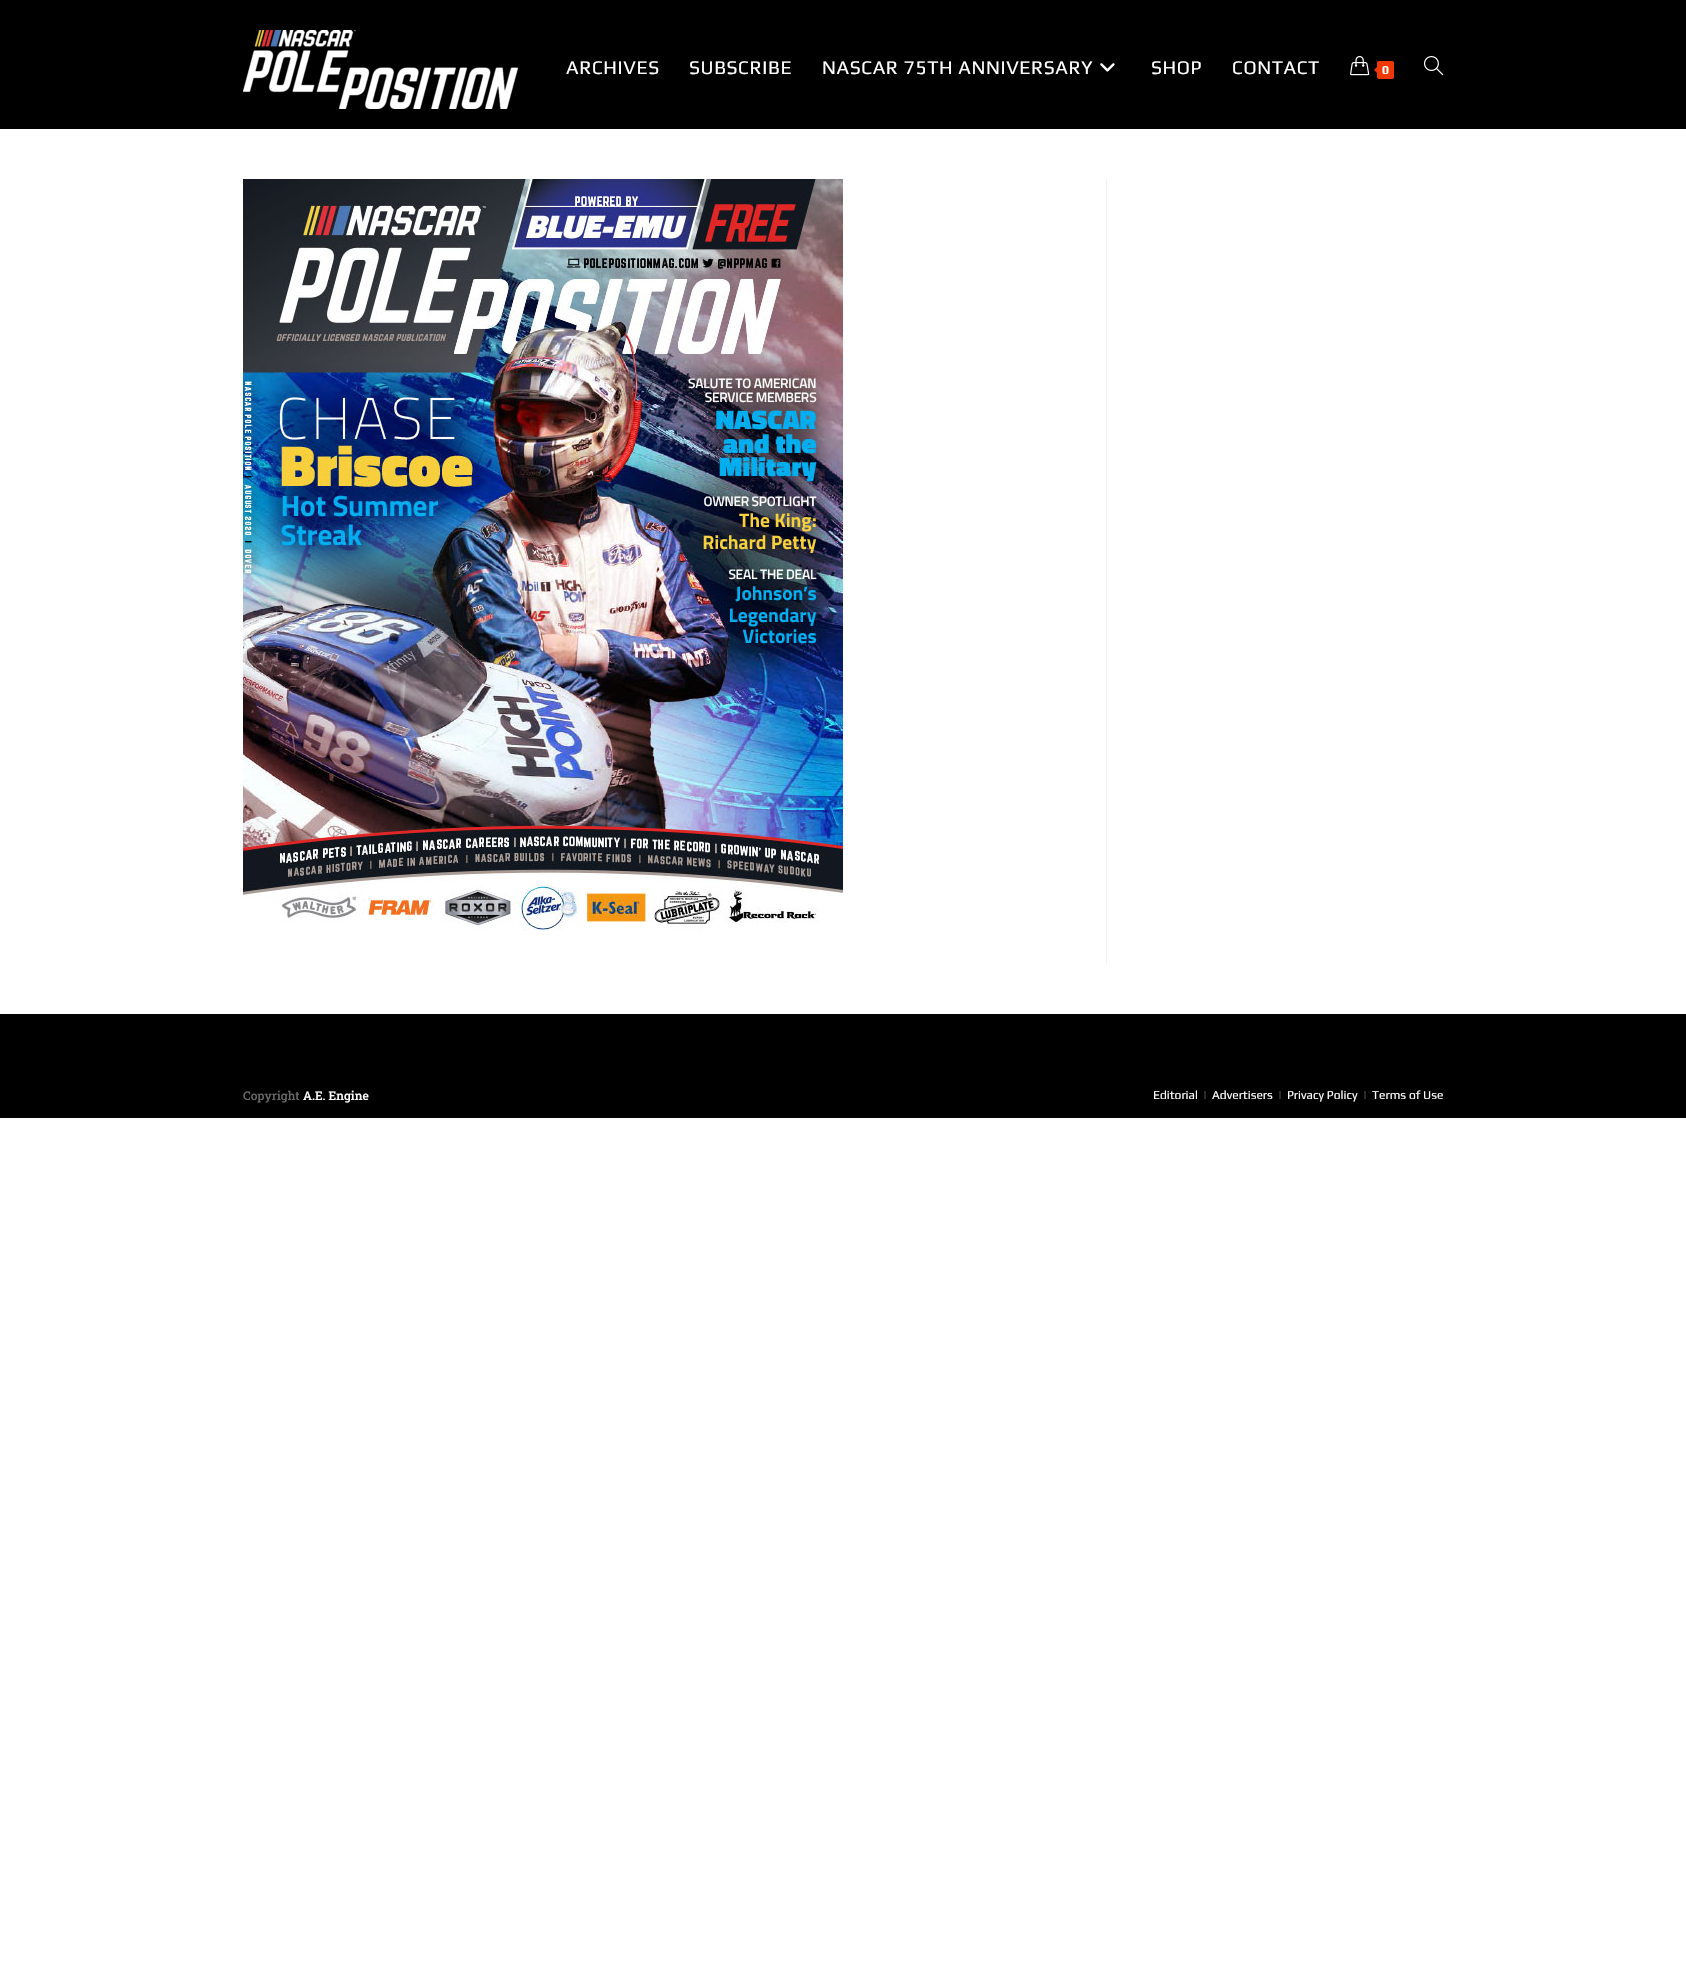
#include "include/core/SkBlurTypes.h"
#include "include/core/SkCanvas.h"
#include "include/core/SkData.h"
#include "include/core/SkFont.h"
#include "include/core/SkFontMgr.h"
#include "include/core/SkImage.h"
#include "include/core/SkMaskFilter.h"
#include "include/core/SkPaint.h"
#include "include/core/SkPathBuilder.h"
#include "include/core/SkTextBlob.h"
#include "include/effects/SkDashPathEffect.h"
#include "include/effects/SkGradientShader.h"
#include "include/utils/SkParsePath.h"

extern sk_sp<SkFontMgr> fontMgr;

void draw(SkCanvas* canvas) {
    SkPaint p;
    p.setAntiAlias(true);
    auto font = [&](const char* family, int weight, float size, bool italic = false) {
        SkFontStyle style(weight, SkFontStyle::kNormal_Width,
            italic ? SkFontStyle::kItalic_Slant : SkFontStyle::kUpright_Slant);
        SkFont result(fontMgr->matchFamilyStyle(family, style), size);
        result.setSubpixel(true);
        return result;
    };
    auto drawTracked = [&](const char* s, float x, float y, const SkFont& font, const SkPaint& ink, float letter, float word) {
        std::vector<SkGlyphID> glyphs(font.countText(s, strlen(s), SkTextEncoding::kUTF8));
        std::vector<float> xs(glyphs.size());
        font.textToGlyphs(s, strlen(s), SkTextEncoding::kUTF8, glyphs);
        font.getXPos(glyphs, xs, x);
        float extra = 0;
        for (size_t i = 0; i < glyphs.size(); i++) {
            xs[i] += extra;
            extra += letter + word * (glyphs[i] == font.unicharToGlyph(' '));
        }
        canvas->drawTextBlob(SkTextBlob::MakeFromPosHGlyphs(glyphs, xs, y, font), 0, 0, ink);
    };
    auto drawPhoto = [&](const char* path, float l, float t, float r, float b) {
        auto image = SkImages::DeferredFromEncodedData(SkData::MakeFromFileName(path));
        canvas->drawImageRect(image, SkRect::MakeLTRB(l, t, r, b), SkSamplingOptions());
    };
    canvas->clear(0xFFFFFFFF);
    p.setColor(0xFF000000);
    canvas->drawRect(SkRect::MakeLTRB(0, 0, 1686, 129), p);
    drawPhoto("media/1.png", 243, 30, 518, 109);
    auto font1 = font("Play", 400, 19.25f);
    p.setColor(0xFFFFFFFF);
    {
        const struct { const char* s; float x, y; } items[] = {
            {"ARCHIVES", 566, 74},
            {"SUBSCRIBE", 689, 74},
            {"NASCAR 75TH ANNIVERSARY", 822, 74},
        };
        for (auto [s, x, y] : items) {
            drawTracked(s, x, y, font1, p, 0.6f, 0);
        }
    }
    drawPhoto("media/2.png", 1100, 63, 1115, 72);
    drawTracked("SHOP", 1151, 74, font1, p, 0.6f, 0);
    drawTracked("CONTACT", 1232, 74, font1, p, 0.6f, 0);
    drawPhoto("media/3.png", 1350, 56, 1370, 76);
    p.setColor(0xFFEE3906);
    canvas->drawRoundRect(SkRect::MakeLTRB(1377, 61, 1394, 79), 2, 2, p);
    canvas->drawPath(SkPathBuilder().moveTo(1379, 65).lineTo(1379, 75).lineTo(1374, 70).close().detach(), p);
    auto font2 = font("Play", 700, 12);
    p.setColor(0xFFFFFFFF);
    canvas->drawString("0", 1382, 74, font2, p);
    drawPhoto("media/4.png", 1423, 56, 1444, 76);
    p.setColor(0xFFF1F1F1);
    canvas->drawRect(SkRect::MakeLTRB(1106, 179, 1107, 964), p);
    drawPhoto("media/5.png", 243, 179, 843, 931);
    p.setColor(0xFF000000);
    canvas->drawRect(SkRect::MakeLTRB(0, 1014, 1686, 1118), p);
    auto font3 = font("Roboto Slab", 500, 12);
    p.setColor(0xFF686868);
    canvas->drawString("Copyright", 243, 1100, font3, p);
    p.setColor(0xFFFFFFFF);
    canvas->drawString("A.E. Engine", 303, 1100, font3, p);
    auto font4 = font("Play", 400, 12);
    canvas->drawString("Editorial", 1153, 1099, font4, p);
    p.setColor(0xFF686868);
    canvas->drawString("|", 1203, 1099, font4, p);
    p.setColor(0xFFFFFFFF);
    canvas->drawString("Advertisers", 1212, 1099, font4, p);
    p.setColor(0xFF686868);
    canvas->drawString("|", 1278, 1099, font4, p);
    p.setColor(0xFFFFFFFF);
    canvas->drawString("Privacy Policy", 1287, 1099, font4, p);
    p.setColor(0xFF686868);
    canvas->drawString("|", 1363, 1099, font4, p);
    p.setColor(0xFFFFFFFF);
    canvas->drawString("Terms of Use", 1372, 1099, font4, p);
}
